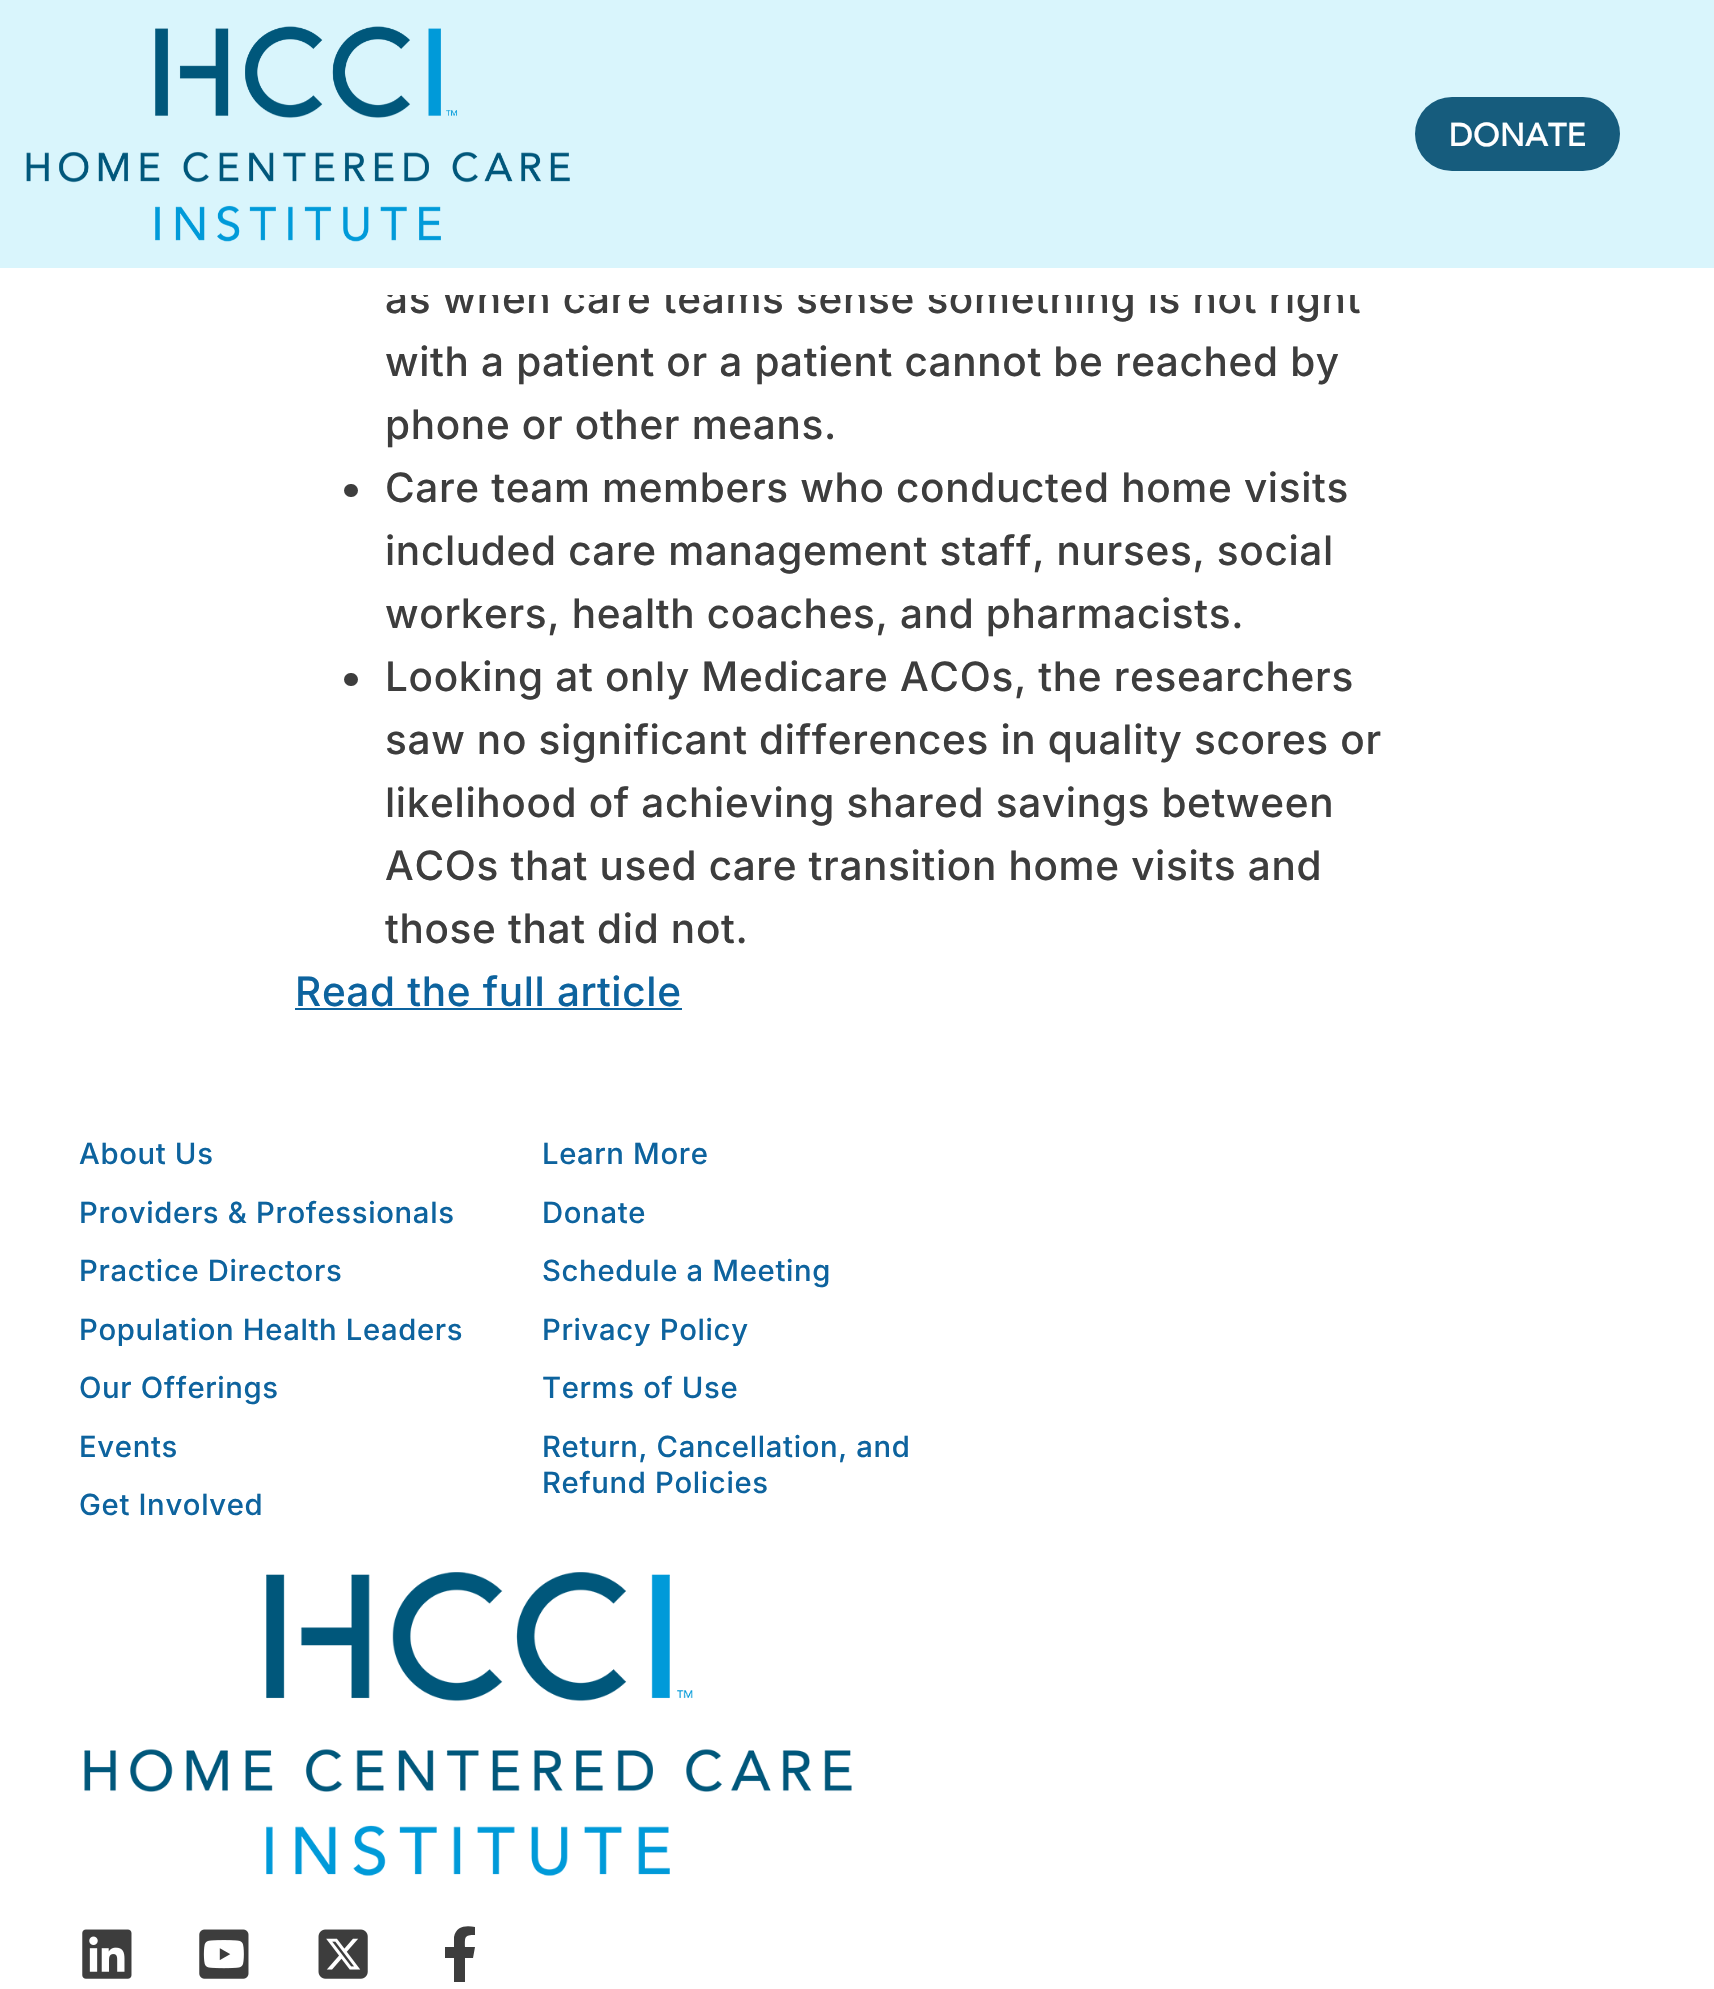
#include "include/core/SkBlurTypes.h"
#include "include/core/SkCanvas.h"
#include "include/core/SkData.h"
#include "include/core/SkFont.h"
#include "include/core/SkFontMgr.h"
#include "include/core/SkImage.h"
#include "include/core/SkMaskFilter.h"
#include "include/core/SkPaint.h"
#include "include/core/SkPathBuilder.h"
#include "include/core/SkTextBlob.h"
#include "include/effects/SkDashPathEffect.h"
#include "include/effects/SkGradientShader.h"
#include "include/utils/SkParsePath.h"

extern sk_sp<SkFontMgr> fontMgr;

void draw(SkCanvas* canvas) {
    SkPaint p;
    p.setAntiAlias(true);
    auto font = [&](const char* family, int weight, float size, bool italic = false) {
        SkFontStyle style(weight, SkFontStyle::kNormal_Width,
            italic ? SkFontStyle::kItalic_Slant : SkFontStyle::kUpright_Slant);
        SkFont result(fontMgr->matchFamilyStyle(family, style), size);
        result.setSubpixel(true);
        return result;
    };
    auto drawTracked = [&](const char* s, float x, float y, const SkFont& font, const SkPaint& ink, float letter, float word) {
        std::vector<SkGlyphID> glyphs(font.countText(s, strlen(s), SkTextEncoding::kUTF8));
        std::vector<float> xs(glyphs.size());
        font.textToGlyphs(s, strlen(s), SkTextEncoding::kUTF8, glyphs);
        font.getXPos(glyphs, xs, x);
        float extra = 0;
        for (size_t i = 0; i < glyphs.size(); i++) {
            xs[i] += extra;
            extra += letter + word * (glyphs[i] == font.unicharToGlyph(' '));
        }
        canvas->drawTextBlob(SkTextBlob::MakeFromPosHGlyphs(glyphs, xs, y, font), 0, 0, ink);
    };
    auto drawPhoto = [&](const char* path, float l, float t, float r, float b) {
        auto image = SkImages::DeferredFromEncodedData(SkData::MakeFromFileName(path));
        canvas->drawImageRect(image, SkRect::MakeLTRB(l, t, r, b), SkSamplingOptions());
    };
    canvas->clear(0xFFFFFFFF);
    p.setColor(0xFFD9F5FC);
    canvas->drawRect(SkRect::MakeLTRB(0, 0, 1714, 268), p);
    drawPhoto("media/1.png", 26, 26, 570, 242);
    p.setColor(0xFF165C7D);
    canvas->drawRoundRect(SkRect::MakeLTRB(1415, 97, 1620, 171), 37, 37, p);
    auto font1 = font("Avenir", 700, 31.5f);
    p.setColor(0xFFFFFFFF);
    drawTracked("DONATE", 1449, 146, font1, p, 0.67f, 0);
    auto font2 = font("Inter", 500, 40.5f);
    p.setColor(0xFF3D3D3D);
    drawTracked("as when care teams sense something is not right", 385, 313, font2, p, 0.67f, 0);
    p.setColor(0xFFFFFFFF);
    canvas->drawRect(SkRect::MakeLTRB(387, 282, 1360, 295), p);
    p.setColor(0xFF3D3D3D);
    drawTracked("with a patient or a patient cannot be reached by", 385, 376, font2, p, 0.67f, 0);
    drawTracked("phone or other means.", 385, 439, font2, p, 0.67f, 0);
    canvas->drawRoundRect(SkRect::MakeLTRB(344, 484, 358, 497), 6.5f, 6.5f, p);
    {
        const struct { const char* s; float x, y; } items[] = {
            {"Care team members who conducted home visits", 385, 502},
            {"included care management staff, nurses, social", 385, 565},
            {"workers, health coaches, and pharmacists.", 385, 628},
        };
        for (auto [s, x, y] : items) {
            drawTracked(s, x, y, font2, p, 0.67f, 0);
        }
    }
    canvas->drawRoundRect(SkRect::MakeLTRB(344, 673, 358, 686), 6.5f, 6.5f, p);
    {
        const struct { const char* s; float x, y; } items[] = {
            {"Looking at only Medicare ACOs, the researchers", 385, 691},
            {"saw no significant differences in quality scores or", 385, 754},
            {"likelihood of achieving shared savings between", 385, 817},
            {"ACOs that used care transition home visits and", 385, 880},
            {"those that did not.", 385, 943},
        };
        for (auto [s, x, y] : items) {
            drawTracked(s, x, y, font2, p, 0.67f, 0);
        }
    }
    p.setColor(0xFF0D639E);
    drawTracked("Read the full article", 295, 1006, font2, p, 0.67f, 0);
    canvas->drawRect(SkRect::MakeLTRB(295, 1008, 682, 1010), p);
    auto font3 = font("Inter", 500, 29.25f);
    {
        const struct { const char* s; float x, y; } items[] = {
            {"About Us", 79, 1164},
            {"Providers & Professionals", 79, 1223},
            {"Practice Directors", 79, 1281},
            {"Population Health Leaders", 79, 1340},
            {"Our Offerings", 79, 1398},
            {"Events", 79, 1457},
            {"Get Involved", 79, 1515},
            {"Learn More", 542, 1164},
            {"Donate", 542, 1223},
            {"Schedule a Meeting", 542, 1281},
            {"Privacy Policy", 542, 1340},
            {"Terms of Use", 542, 1398},
            {"Return, Cancellation, and", 542, 1457},
            {"Refund Policies", 542, 1493},
        };
        for (auto [s, x, y] : items) {
            drawTracked(s, x, y, font3, p, 0.67f, 0);
        }
    }
    drawPhoto("media/2.png", 84, 1572, 852, 1876);
    drawPhoto("media/3.png", 82, 1929, 132, 1979);
    drawPhoto("media/4.png", 199, 1929, 249, 1979);
    drawPhoto("media/5.png", 318, 1929, 368, 1979);
    p.setColor(0xFF3D3D3D);
    canvas->drawPath(SkPathBuilder().moveTo(473, 1958).lineTo(475, 1947).lineTo(465, 1947).cubicTo(465, 1937, 464, 1935, 475, 1935).lineTo(475, 1927).cubicTo(466, 1925, 456, 1926, 454, 1937).lineTo(454, 1947).lineTo(445, 1947).lineTo(445, 1958).lineTo(454, 1958).lineTo(454, 1982).lineTo(465, 1982).lineTo(465, 1958).close().detach(), p);
}
